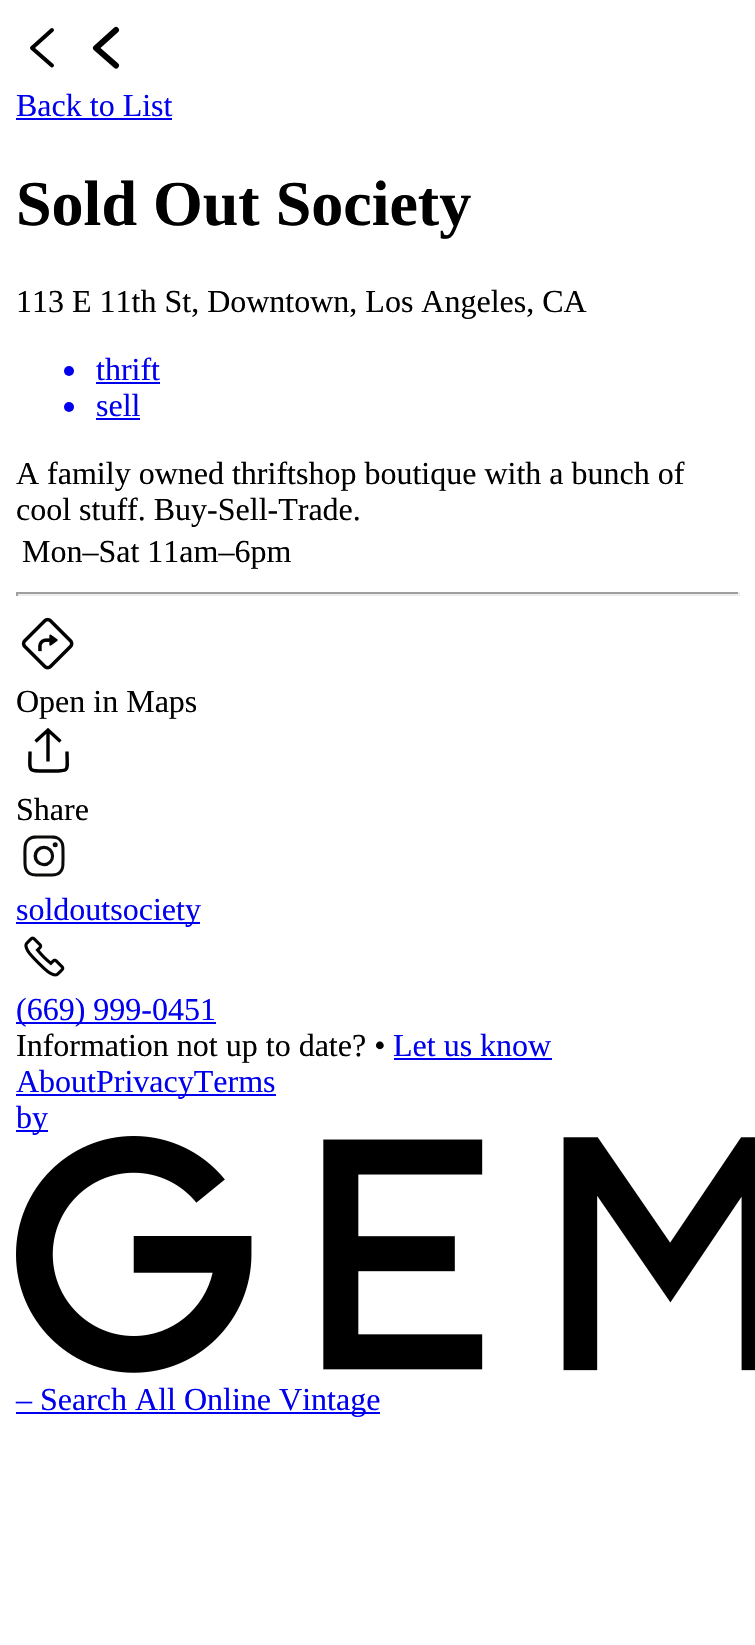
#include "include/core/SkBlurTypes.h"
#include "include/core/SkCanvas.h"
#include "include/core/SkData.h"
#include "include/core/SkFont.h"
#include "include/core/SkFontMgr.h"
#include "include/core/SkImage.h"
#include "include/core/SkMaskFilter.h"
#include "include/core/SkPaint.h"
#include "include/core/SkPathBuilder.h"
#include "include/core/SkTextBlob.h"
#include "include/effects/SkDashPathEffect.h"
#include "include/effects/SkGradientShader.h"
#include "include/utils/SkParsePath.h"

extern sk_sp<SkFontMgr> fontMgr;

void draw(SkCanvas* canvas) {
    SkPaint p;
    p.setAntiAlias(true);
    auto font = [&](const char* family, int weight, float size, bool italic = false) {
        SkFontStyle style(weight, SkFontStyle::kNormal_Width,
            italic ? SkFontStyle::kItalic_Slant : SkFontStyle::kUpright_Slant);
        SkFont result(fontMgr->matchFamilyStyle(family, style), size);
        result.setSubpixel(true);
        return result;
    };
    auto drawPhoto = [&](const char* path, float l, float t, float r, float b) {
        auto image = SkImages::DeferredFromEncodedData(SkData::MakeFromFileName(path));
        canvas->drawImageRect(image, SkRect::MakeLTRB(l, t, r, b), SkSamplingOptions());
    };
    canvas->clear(0xFFFFFFFF);
    p.setStyle(SkPaint::kStroke_Style);
    p.setStrokeWidth(4);
    p.setStrokeCap(SkPaint::kRound_Cap);
    p.setStrokeJoin(SkPaint::kRound_Join);
    p.setColor(0xFF000000);
    canvas->drawPath(SkPathBuilder().moveTo(52, 30).lineTo(32, 48).lineTo(52, 65.5f).detach(), p);
    p.setStrokeWidth(6);
    canvas->drawPath(SkPathBuilder().moveTo(116, 30).lineTo(96, 48).lineTo(116, 65.5f).detach(), p);
    auto font1 = font("Liberation Serif", 400, 32);
    p.setStyle(SkPaint::kFill_Style);
    p.setColor(0xFF0000EE);
    canvas->drawString("Back to List", 16, 116, font1, p);
    canvas->drawRect(SkRect::MakeLTRB(16, 118, 172, 120), p);
    auto font2 = font("Liberation Serif", 700, 64);
    p.setColor(0xFF000000);
    canvas->drawString("Sold Out Society", 16, 225, font2, p);
    canvas->drawString("113 E 11th St, Downtown, Los Angeles, CA", 16, 312, font1, p);
    p.setColor(0xFF0000EE);
    canvas->drawCircle(69, 371, 5, p);
    canvas->drawString("thrift", 96, 380, font1, p);
    canvas->drawRect(SkRect::MakeLTRB(96, 382, 160, 384), p);
    canvas->drawCircle(69, 407, 5, p);
    canvas->drawString("sell", 96, 416, font1, p);
    canvas->drawRect(SkRect::MakeLTRB(96, 418, 140, 420), p);
    p.setColor(0xFF000000);
    {
        const struct { const char* s; float x, y; } items[] = {
            {"A family owned thriftshop boutique with a bunch of", 16, 484},
            {"cool stuff. Buy-Sell-Trade.", 16, 520},
            {"Mon–Sat 11am–6pm", 22, 562},
        };
        for (auto [s, x, y] : items) {
            canvas->drawString(s, x, y, font1, p);
        }
    }
    {
        const struct { float l, t, r, b; SkColor color; } items[] = {
            {16, 592, 740, 594, 0xFF9F9F9F},
            {738, 592, 740, 596, 0xFFEEEEEE},
            {16, 594, 740, 596, 0xFFEEEEEE},
            {16, 592, 18, 596, 0xFF9F9F9F},
        };
        for (auto [l, t, r, b, color] : items) {
            p.setColor(color);
            canvas->drawRect(SkRect::MakeLTRB(l, t, r, b), p);
        }
    }
    drawPhoto("media/1.png", 21, 617, 74, 670);
    p.setColor(0xFF000000);
    canvas->drawString("Open in Maps", 16, 712, font1, p);
    p.setStyle(SkPaint::kStroke_Style);
    p.setStrokeWidth(3.4f);
    p.setStrokeCap(SkPaint::kButt_Cap);
    p.setStrokeJoin(SkPaint::kMiter_Join);
    canvas->drawPath(SkPathBuilder().moveTo(30, 751.5f).cubicTo(30, 772.5f, 26.5f, 771, 48.5f, 771).cubicTo(71, 771, 67, 772.5f, 67, 751.5f).moveTo(48, 761.5f).lineTo(48, 730).moveTo(35.5f, 741.5f).lineTo(48, 730).lineTo(60.5f, 741.5f).detach(), p);
    p.setStyle(SkPaint::kFill_Style);
    canvas->drawString("Share", 16, 820, font1, p);
    drawPhoto("media/2.png", 23, 835, 65, 877);
    p.setColor(0xFF0000EE);
    canvas->drawRect(SkRect::MakeLTRB(16, 922, 200, 924), p);
    canvas->drawString("soldoutsociety", 16, 920, font1, p);
    drawPhoto("media/3.png", 24, 936, 65, 977);
    canvas->drawRect(SkRect::MakeLTRB(16, 1022, 216, 1024), p);
    canvas->drawString("(669) 999-0451", 16, 1020, font1, p);
    p.setColor(0xFF000000);
    canvas->drawString("Information not up to date? •", 16, 1056, font1, p);
    p.setColor(0xFF0000EE);
    canvas->drawString("Let us know", 393, 1056, font1, p);
    canvas->drawRect(SkRect::MakeLTRB(394, 1058, 552, 1060), p);
    canvas->drawRect(SkRect::MakeLTRB(16, 1094, 276, 1096), p);
    canvas->drawString("AboutPrivacyTerms", 16, 1092, font1, p);
    canvas->drawRect(SkRect::MakeLTRB(16, 1130, 48, 1132), p);
    canvas->drawString("by", 16, 1128, font1, p);
    drawPhoto("media/4.png", 16, 1136, 755, 1373);
    canvas->drawRect(SkRect::MakeLTRB(16, 1412, 380, 1414), p);
    canvas->drawString("– Search All Online Vintage", 16, 1410, font1, p);
}
